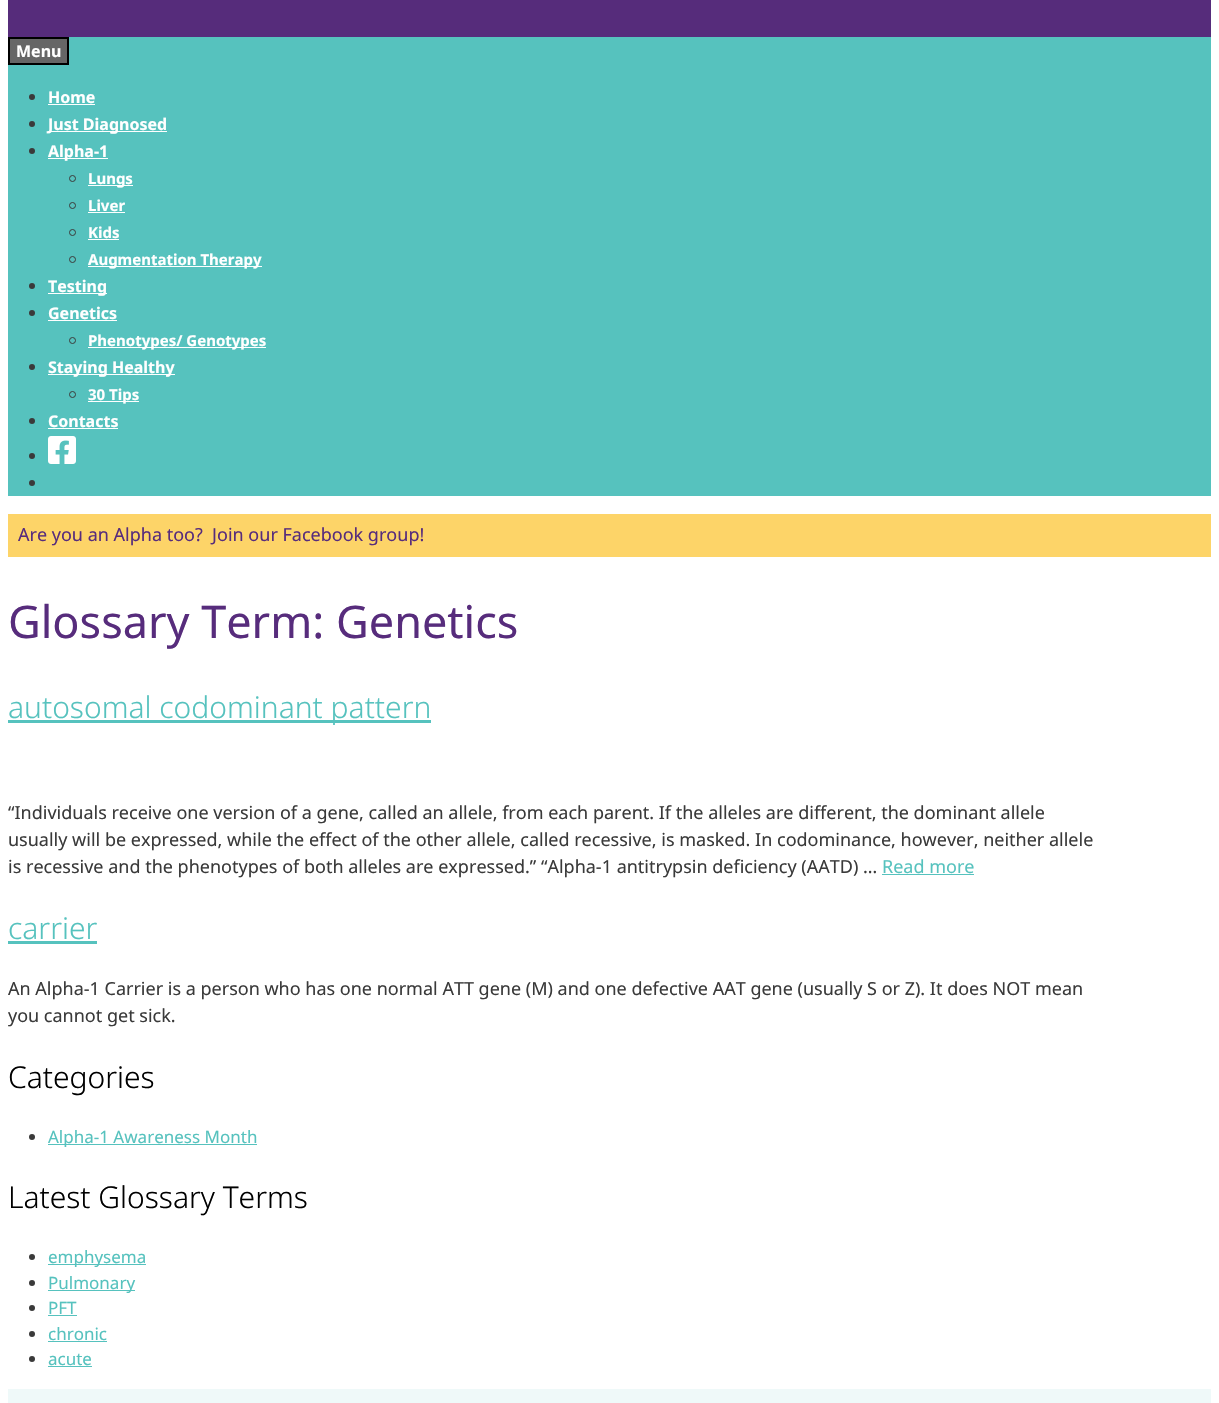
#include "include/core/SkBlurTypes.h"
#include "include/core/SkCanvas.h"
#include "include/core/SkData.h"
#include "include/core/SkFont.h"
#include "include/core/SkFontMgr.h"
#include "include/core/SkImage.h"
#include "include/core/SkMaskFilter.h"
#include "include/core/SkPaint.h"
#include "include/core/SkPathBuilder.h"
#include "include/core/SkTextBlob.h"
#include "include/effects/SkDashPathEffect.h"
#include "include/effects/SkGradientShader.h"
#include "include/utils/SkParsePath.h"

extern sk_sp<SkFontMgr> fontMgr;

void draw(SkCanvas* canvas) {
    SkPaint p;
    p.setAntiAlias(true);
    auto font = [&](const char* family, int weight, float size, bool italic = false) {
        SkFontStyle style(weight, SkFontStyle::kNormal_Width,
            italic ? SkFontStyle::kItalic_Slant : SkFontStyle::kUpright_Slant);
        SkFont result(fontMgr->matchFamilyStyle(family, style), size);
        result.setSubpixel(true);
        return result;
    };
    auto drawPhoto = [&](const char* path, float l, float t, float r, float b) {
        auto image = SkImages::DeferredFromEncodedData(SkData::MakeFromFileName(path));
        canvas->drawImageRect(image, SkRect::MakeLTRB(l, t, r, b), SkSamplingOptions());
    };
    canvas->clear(0xFFFFFFFF);
    p.setColor(0xFF562C7B);
    canvas->drawRect(SkRect::MakeLTRB(8, 0, 1211, 37), p);
    p.setColor(0xFF56C2BE);
    canvas->drawRect(SkRect::MakeLTRB(8, 37, 1211, 496), p);
    p.setColor(0xFF666666);
    canvas->drawRect(SkRect::MakeLTRB(9, 38, 68, 64), p);
    p.setStyle(SkPaint::kStroke_Style);
    p.setStrokeWidth(2);
    p.setColor(0xFF000000);
    canvas->drawRect(SkRect::MakeLTRB(9, 38, 68, 64), p);
    auto font1 = font("Noto Sans", 700, 16);
    p.setStyle(SkPaint::kFill_Style);
    p.setColor(0xFFFFFFFF);
    canvas->drawString("Menu", 16, 57, font1, p);
    p.setColor(0xFF3A3A3A);
    canvas->drawCircle(32, 97, 3, p);
    p.setColor(0xFFFFFFFF);
    canvas->drawString("Home", 48, 103, font1, p);
    canvas->drawRect(SkRect::MakeLTRB(48, 104, 95, 105), p);
    p.setColor(0xFF3A3A3A);
    canvas->drawCircle(32, 124, 3, p);
    p.setColor(0xFFFFFFFF);
    canvas->drawRect(SkRect::MakeLTRB(48, 131, 167, 132), p);
    canvas->drawString("Just Diagnosed", 48, 130, font1, p);
    p.setColor(0xFF3A3A3A);
    canvas->drawCircle(32, 151, 3, p);
    p.setColor(0xFFFFFFFF);
    canvas->drawRect(SkRect::MakeLTRB(48, 158, 108, 159), p);
    canvas->drawString("Alpha-1", 48, 157, font1, p);
    p.setStyle(SkPaint::kStroke_Style);
    p.setStrokeWidth(1);
    p.setColor(0xFF3A3A3A);
    canvas->drawCircle(72.5f, 178.5f, 3, p);
    p.setStyle(SkPaint::kFill_Style);
    p.setColor(0xFFFFFFFF);
    canvas->drawRect(SkRect::MakeLTRB(88, 185, 133, 186), p);
    auto font2 = font("Noto Sans", 700, 15);
    canvas->drawString("Lungs", 88, 184, font2, p);
    p.setStyle(SkPaint::kStroke_Style);
    p.setColor(0xFF3A3A3A);
    canvas->drawCircle(72.5f, 205.5f, 3, p);
    p.setStyle(SkPaint::kFill_Style);
    p.setColor(0xFFFFFFFF);
    canvas->drawString("Liver", 88, 211, font2, p);
    canvas->drawRect(SkRect::MakeLTRB(88, 212, 125, 213), p);
    p.setStyle(SkPaint::kStroke_Style);
    p.setColor(0xFF3A3A3A);
    canvas->drawCircle(72.5f, 232.5f, 3, p);
    p.setStyle(SkPaint::kFill_Style);
    p.setColor(0xFFFFFFFF);
    canvas->drawString("Kids", 88, 238, font2, p);
    canvas->drawRect(SkRect::MakeLTRB(88, 239, 119, 240), p);
    p.setStyle(SkPaint::kStroke_Style);
    p.setColor(0xFF3A3A3A);
    canvas->drawCircle(72.5f, 259.5f, 3, p);
    p.setStyle(SkPaint::kFill_Style);
    p.setColor(0xFFFFFFFF);
    canvas->drawRect(SkRect::MakeLTRB(88, 266, 262, 267), p);
    canvas->drawString("Augmentation Therapy", 88, 265, font2, p);
    p.setColor(0xFF3A3A3A);
    canvas->drawCircle(32, 286, 3, p);
    p.setColor(0xFFFFFFFF);
    canvas->drawRect(SkRect::MakeLTRB(48, 293, 107, 294), p);
    canvas->drawString("Testing", 48, 292, font1, p);
    p.setColor(0xFF3A3A3A);
    canvas->drawCircle(32, 313, 3, p);
    p.setColor(0xFFFFFFFF);
    canvas->drawString("Genetics", 48, 319, font1, p);
    canvas->drawRect(SkRect::MakeLTRB(48, 320, 117, 321), p);
    p.setStyle(SkPaint::kStroke_Style);
    p.setColor(0xFF3A3A3A);
    canvas->drawCircle(72.5f, 340.5f, 3, p);
    p.setStyle(SkPaint::kFill_Style);
    p.setColor(0xFFFFFFFF);
    canvas->drawRect(SkRect::MakeLTRB(88, 347, 266, 348), p);
    canvas->drawString("Phenotypes/ Genotypes", 88, 346, font2, p);
    p.setColor(0xFF3A3A3A);
    canvas->drawCircle(32, 367, 3, p);
    p.setColor(0xFFFFFFFF);
    canvas->drawRect(SkRect::MakeLTRB(48, 374, 175, 375), p);
    canvas->drawString("Staying Healthy", 48, 373, font1, p);
    p.setStyle(SkPaint::kStroke_Style);
    p.setColor(0xFF3A3A3A);
    canvas->drawCircle(72.5f, 394.5f, 3, p);
    p.setStyle(SkPaint::kFill_Style);
    p.setColor(0xFFFFFFFF);
    canvas->drawRect(SkRect::MakeLTRB(88, 401, 139, 402), p);
    canvas->drawString("30 Tips", 88, 400, font2, p);
    p.setColor(0xFF3A3A3A);
    canvas->drawCircle(32, 421, 3, p);
    p.setColor(0xFFFFFFFF);
    canvas->drawString("Contacts", 48, 427, font1, p);
    canvas->drawRect(SkRect::MakeLTRB(48, 428, 118, 429), p);
    p.setColor(0xFF3A3A3A);
    canvas->drawCircle(32, 456, 3, p);
    drawPhoto("media/1.png", 48, 436, 76, 464);
    canvas->drawCircle(32, 483, 3, p);
    p.setColor(0xFFFDD468);
    canvas->drawRect(SkRect::MakeLTRB(8, 514, 1211, 557), p);
    auto font3 = font("Noto Sans", 400, 18);
    p.setColor(0xFF572C7C);
    canvas->drawString("Are you an Alpha too?  Join our Facebook group!", 18, 541, font3, p);
    auto font4 = font("Noto Sans", 400, 45);
    canvas->drawString("Glossary Term: Genetics", 8, 638, font4, p);
    p.setColor(0xFF56C2BE);
    canvas->drawRect(SkRect::MakeLTRB(8, 720, 431, 723), p);
    auto font5 = font("Noto Sans", 300, 30);
    canvas->drawString("autosomal codominant pattern", 8, 718, font5, p);
    p.setColor(0xFF3A3A3A);
    {
        const struct { const char* s; float x, y; } items[] = {
            {"“Individuals receive one version of a gene, called an allele, from each parent. If the alleles are different, the dominant allele", 8, 819},
            {"usually will be expressed, while the effect of the other allele, called recessive, is masked. In codominance, however, neither allele", 8, 846},
            {"is recessive and the phenotypes of both alleles are expressed.” “Alpha-1 antitrypsin deficiency (AATD) …", 8, 873},
        };
        for (auto [s, x, y] : items) {
            canvas->drawString(s, x, y, font3, p);
        }
    }
    p.setColor(0xFF56C2BE);
    canvas->drawString("Read more", 882, 873, font3, p);
    canvas->drawRect(SkRect::MakeLTRB(882, 874, 974, 875), p);
    canvas->drawString("carrier", 8, 939, font5, p);
    canvas->drawRect(SkRect::MakeLTRB(8, 941, 97, 944), p);
    p.setColor(0xFF3A3A3A);
    canvas->drawString("An Alpha-1 Carrier is a person who has one normal ATT gene (M) and one defective AAT gene (usually S or Z). It does NOT mean", 8, 995, font3, p);
    canvas->drawString("you cannot get sick.", 8, 1022, font3, p);
    p.setColor(0xFF000000);
    canvas->drawString("Categories", 8, 1088, font5, p);
    p.setColor(0xFF3A3A3A);
    canvas->drawCircle(32, 1137, 3, p);
    p.setColor(0xFF56C2BE);
    canvas->drawRect(SkRect::MakeLTRB(48, 1144, 257, 1145), p);
    auto font6 = font("Noto Sans", 400, 17);
    canvas->drawString("Alpha-1 Awareness Month", 48, 1143, font6, p);
    p.setColor(0xFF000000);
    canvas->drawString("Latest Glossary Terms", 8, 1208, font5, p);
    p.setColor(0xFF3A3A3A);
    canvas->drawCircle(32, 1257, 3, p);
    p.setColor(0xFF56C2BE);
    canvas->drawRect(SkRect::MakeLTRB(48, 1264, 146, 1265), p);
    canvas->drawString("emphysema", 48, 1263, font6, p);
    p.setColor(0xFF3A3A3A);
    canvas->drawCircle(32, 1283, 3, p);
    p.setColor(0xFF56C2BE);
    canvas->drawRect(SkRect::MakeLTRB(48, 1290, 135, 1291), p);
    canvas->drawString("Pulmonary", 48, 1289, font6, p);
    p.setColor(0xFF3A3A3A);
    canvas->drawCircle(32, 1308, 3, p);
    p.setColor(0xFF56C2BE);
    canvas->drawString("PFT", 48, 1314, font6, p);
    canvas->drawRect(SkRect::MakeLTRB(48, 1315, 77, 1316), p);
    p.setColor(0xFF3A3A3A);
    canvas->drawCircle(32, 1334, 3, p);
    p.setColor(0xFF56C2BE);
    canvas->drawString("chronic", 48, 1340, font6, p);
    canvas->drawRect(SkRect::MakeLTRB(48, 1341, 107, 1342), p);
    p.setColor(0xFF3A3A3A);
    canvas->drawCircle(32, 1359, 3, p);
    p.setColor(0xFF56C2BE);
    canvas->drawString("acute", 48, 1365, font6, p);
    canvas->drawRect(SkRect::MakeLTRB(48, 1366, 92, 1367), p);
    p.setColor(0xFFEFF9F9);
    canvas->drawRect(SkRect::MakeLTRB(8, 1389, 1211, 1403), p);
}
